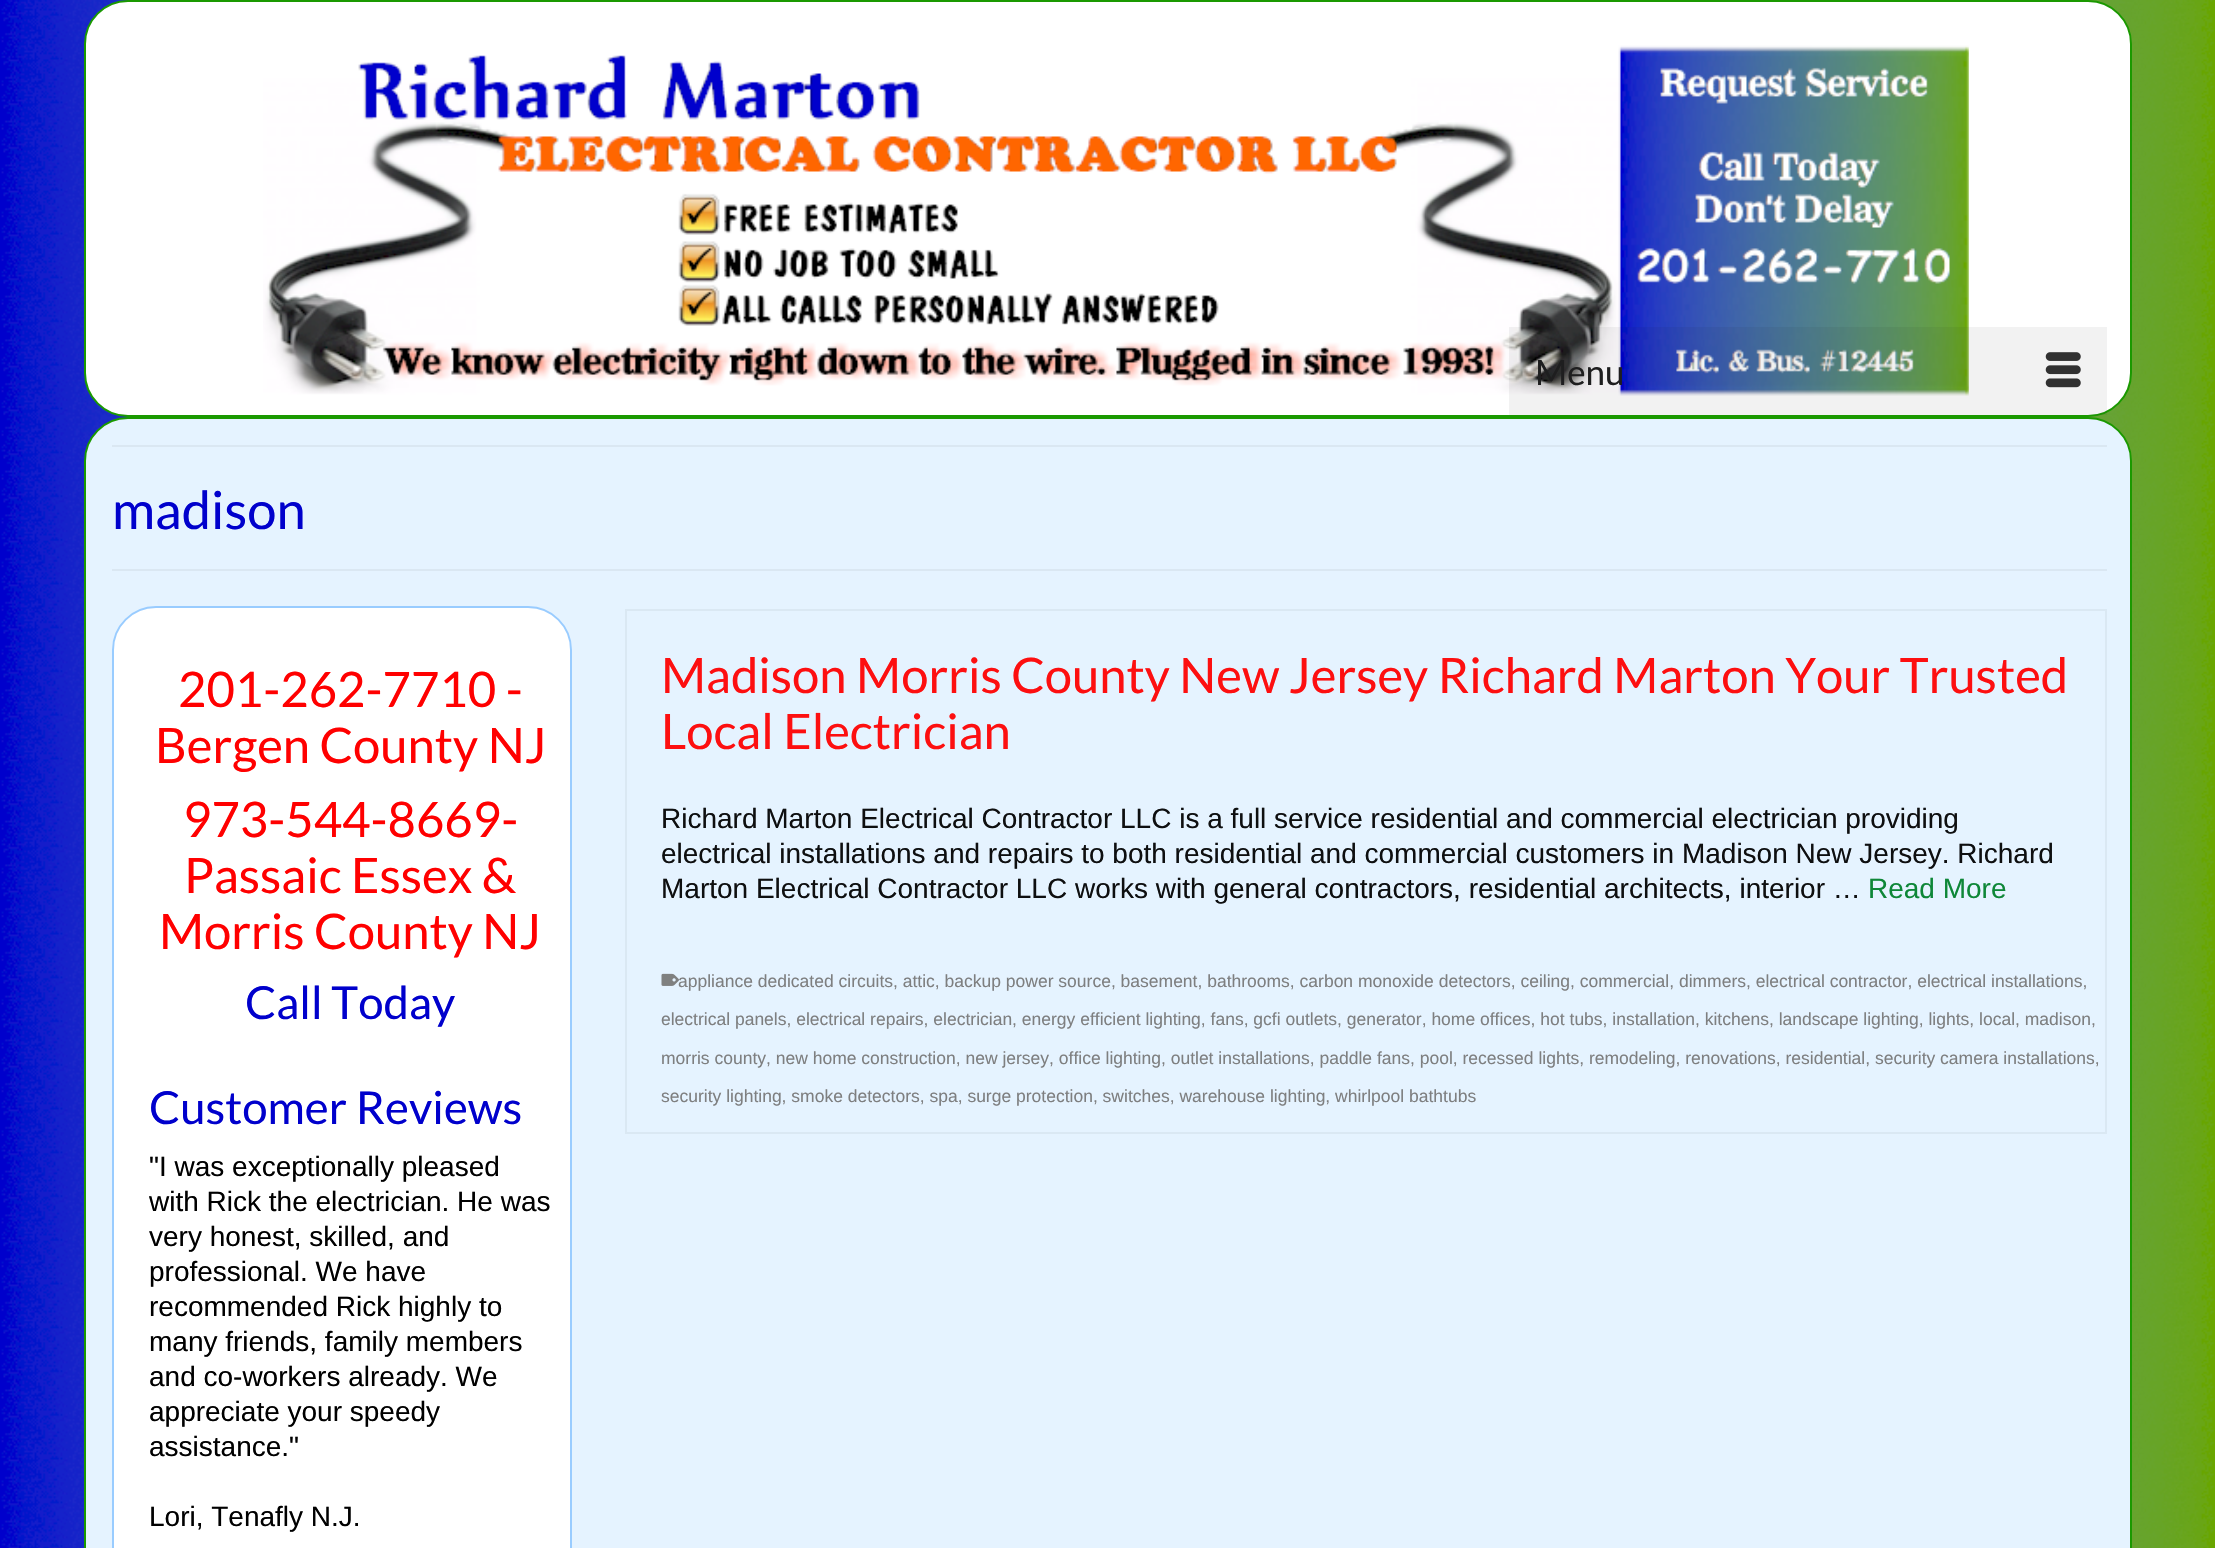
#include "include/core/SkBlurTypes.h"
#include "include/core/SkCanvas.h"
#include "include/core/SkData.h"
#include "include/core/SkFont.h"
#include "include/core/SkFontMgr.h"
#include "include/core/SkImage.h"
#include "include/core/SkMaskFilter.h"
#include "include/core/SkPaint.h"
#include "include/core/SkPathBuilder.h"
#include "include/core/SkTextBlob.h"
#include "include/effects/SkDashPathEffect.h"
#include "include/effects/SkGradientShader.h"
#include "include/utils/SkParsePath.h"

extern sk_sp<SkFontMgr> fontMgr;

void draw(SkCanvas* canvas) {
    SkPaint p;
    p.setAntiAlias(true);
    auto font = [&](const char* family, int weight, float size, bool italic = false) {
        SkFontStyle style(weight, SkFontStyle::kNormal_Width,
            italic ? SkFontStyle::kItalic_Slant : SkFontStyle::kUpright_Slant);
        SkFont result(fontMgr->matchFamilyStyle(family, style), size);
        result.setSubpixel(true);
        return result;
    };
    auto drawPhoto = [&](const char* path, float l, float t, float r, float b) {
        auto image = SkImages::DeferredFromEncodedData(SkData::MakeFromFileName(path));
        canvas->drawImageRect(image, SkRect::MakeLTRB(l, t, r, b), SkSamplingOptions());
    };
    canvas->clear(0xFFFFFFFF);
    drawPhoto("media/1.png", 0, 0, 2215, 1548);
    p.setColor(0xFFFFFFFF);
    canvas->drawRoundRect(SkRect::MakeLTRB(85, 1, 2131, 416), 43, 43, p);
    p.setStyle(SkPaint::kStroke_Style);
    p.setStrokeWidth(2);
    p.setColor(0xFF1A9900);
    canvas->drawRoundRect(SkRect::MakeLTRB(85, 1, 2131, 416), 43, 43, p);
    drawPhoto("media/2.png", 263, 45, 1969, 396);
    p.setStyle(SkPaint::kFill_Style);
    p.setColor(0x0D000000);
    canvas->drawRect(SkRect::MakeLTRB(1509, 327, 2107, 415), p);
    auto font1 = font("Lato", 400, 35);
    p.setColor(0xFF1E1E1F);
    canvas->drawString("Menu", 1535, 385, font1, p);
    drawPhoto("media/3.png", 2045, 352, 2081, 388);
    p.setColor(0xFFE5F3FF);
    canvas->drawRoundRect(SkRect::MakeLTRB(85, 418, 2131, 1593), 43, 43, p);
    p.setStyle(SkPaint::kStroke_Style);
    p.setColor(0xFF1A9900);
    canvas->drawRoundRect(SkRect::MakeLTRB(85, 418, 2131, 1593), 43, 43, p);
    p.setStyle(SkPaint::kFill_Style);
    p.setColor(0xFFDAE7F2);
    canvas->drawRect(SkRect::MakeLTRB(112, 445, 2107, 447), p);
    canvas->drawRect(SkRect::MakeLTRB(112, 569, 2107, 571), p);
    auto font2 = font("Lato", 400, 52.5f);
    p.setColor(0xFF0000CC);
    canvas->drawString("madison", 112, 529, font2, p);
    p.setColor(0xFFFFFFFF);
    canvas->drawRoundRect(SkRect::MakeLTRB(113, 607, 571, 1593), 43, 43, p);
    p.setStyle(SkPaint::kStroke_Style);
    p.setColor(0xFF99CCFF);
    canvas->drawRoundRect(SkRect::MakeLTRB(113, 607, 571, 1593), 43, 43, p);
    auto font3 = font("Lato", 400, 49);
    p.setStyle(SkPaint::kFill_Style);
    p.setColor(0xFFFF0000);
    {
        const struct { const char* s; float x, y; } items[] = {
            {"201-262-7710 -", 178, 707},
            {"Bergen County NJ", 155, 763},
            {"973-544-8669-", 183, 837},
            {"Passaic Essex &", 184, 893},
            {"Morris County NJ", 159, 949},
        };
        for (auto [s, x, y] : items) {
            canvas->drawString(s, x, y, font3, p);
        }
    }
    auto font4 = font("Lato", 400, 45.5f);
    p.setColor(0xFF0000CC);
    canvas->drawString("Call Today", 245, 1019, font4, p);
    canvas->drawString("Customer Reviews", 149, 1124, font4, p);
    auto font5 = font("Liberation Sans", 400, 28);
    p.setColor(0xFF000000);
    {
        const struct { const char* s; float x, y; } items[] = {
            {"\"I was exceptionally pleased", 149, 1176},
            {"with Rick the electrician. He was", 149, 1211},
            {"very honest, skilled, and", 149, 1246},
            {"professional. We have", 149, 1281},
            {"recommended Rick highly to", 149, 1316},
            {"many friends, family members", 149, 1351},
            {"and co-workers already. We", 149, 1386},
            {"appreciate your speedy", 149, 1421},
            {"assistance.\"", 149, 1456},
            {"Lori, Tenafly N.J.", 149, 1526},
        };
        for (auto [s, x, y] : items) {
            canvas->drawString(s, x, y, font5, p);
        }
    }
    p.setStyle(SkPaint::kStroke_Style);
    p.setColor(0xFFDAE8F3);
    canvas->drawRect(SkRect::MakeLTRB(626, 610, 2106, 1133), p);
    p.setStyle(SkPaint::kFill_Style);
    p.setColor(0xFFFD0F10);
    canvas->drawString("Madison Morris County New Jersey Richard Marton Your Trusted", 661, 693, font3, p);
    canvas->drawString("Local Electrician", 661, 749, font3, p);
    p.setColor(0xFF0E0F10);
    {
        const struct { const char* s; float x, y; } items[] = {
            {"Richard Marton Electrical Contractor LLC is a full service residential and commercial electrician providing", 661, 828},
            {"electrical installations and repairs to both residential and commercial customers in Madison New Jersey. Richard", 661, 863},
            {"Marton Electrical Contractor LLC works with general contractors, residential architects, interior …", 661, 898},
        };
        for (auto [s, x, y] : items) {
            canvas->drawString(s, x, y, font5, p);
        }
    }
    p.setColor(0xFF0E8738);
    canvas->drawString("Read More", 1868, 898, font5, p);
    drawPhoto("media/4.png", 661, 973, 679, 986);
    auto font6 = font("Liberation Sans", 400, 17.5f);
    p.setColor(0xFF7E7F80);
    {
        const struct { const char* s; float x, y; } items[] = {
            {"appliance dedicated circuits, attic, backup power source, basement, bathrooms, carbon monoxide detectors, ceiling, commercial, dimmers, electrical contractor, electrical installations,", 678, 987},
            {"electrical panels, electrical repairs, electrician, energy efficient lighting, fans, gcfi outlets, generator, home offices, hot tubs, installation, kitchens, landscape lighting, lights, local, madison,", 661, 1025},
            {"morris county, new home construction, new jersey, office lighting, outlet installations, paddle fans, pool, recessed lights, remodeling, renovations, residential, security camera installations,", 661, 1064},
            {"security lighting, smoke detectors, spa, surge protection, switches, warehouse lighting, whirlpool bathtubs", 661, 1102},
        };
        for (auto [s, x, y] : items) {
            canvas->drawString(s, x, y, font6, p);
        }
    }
}
